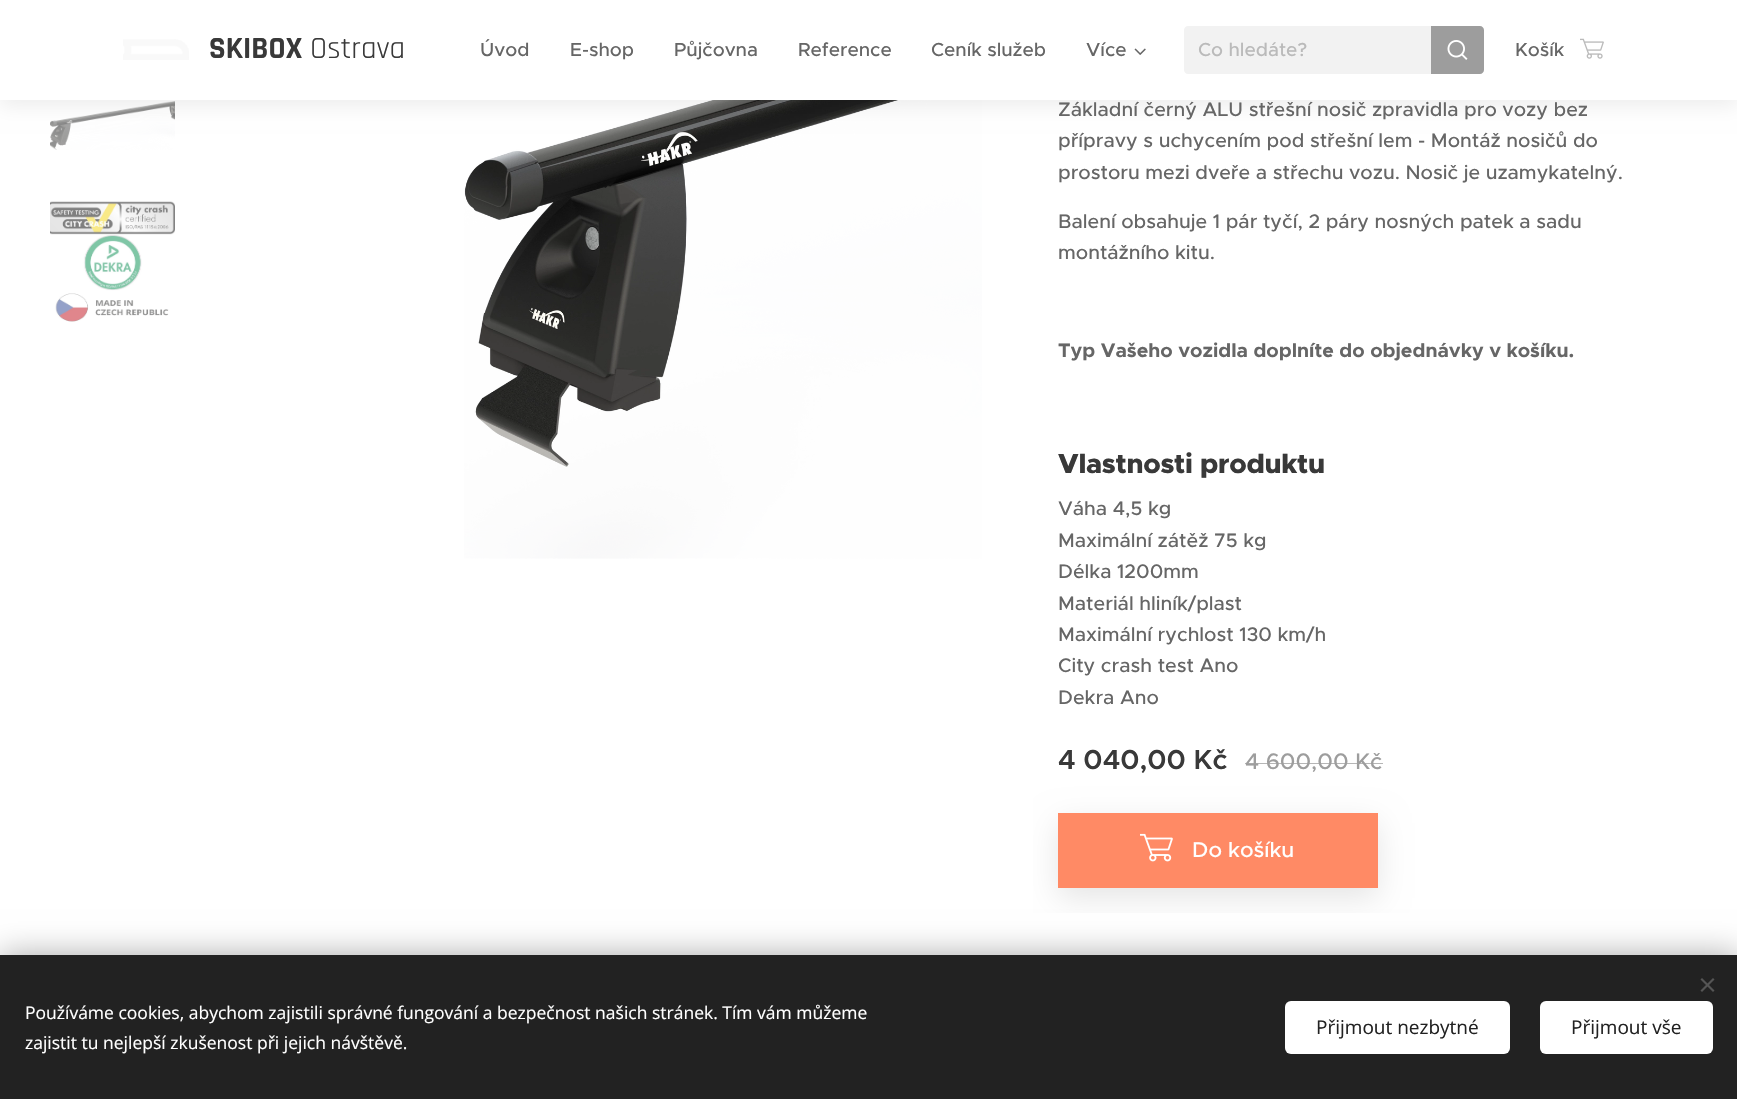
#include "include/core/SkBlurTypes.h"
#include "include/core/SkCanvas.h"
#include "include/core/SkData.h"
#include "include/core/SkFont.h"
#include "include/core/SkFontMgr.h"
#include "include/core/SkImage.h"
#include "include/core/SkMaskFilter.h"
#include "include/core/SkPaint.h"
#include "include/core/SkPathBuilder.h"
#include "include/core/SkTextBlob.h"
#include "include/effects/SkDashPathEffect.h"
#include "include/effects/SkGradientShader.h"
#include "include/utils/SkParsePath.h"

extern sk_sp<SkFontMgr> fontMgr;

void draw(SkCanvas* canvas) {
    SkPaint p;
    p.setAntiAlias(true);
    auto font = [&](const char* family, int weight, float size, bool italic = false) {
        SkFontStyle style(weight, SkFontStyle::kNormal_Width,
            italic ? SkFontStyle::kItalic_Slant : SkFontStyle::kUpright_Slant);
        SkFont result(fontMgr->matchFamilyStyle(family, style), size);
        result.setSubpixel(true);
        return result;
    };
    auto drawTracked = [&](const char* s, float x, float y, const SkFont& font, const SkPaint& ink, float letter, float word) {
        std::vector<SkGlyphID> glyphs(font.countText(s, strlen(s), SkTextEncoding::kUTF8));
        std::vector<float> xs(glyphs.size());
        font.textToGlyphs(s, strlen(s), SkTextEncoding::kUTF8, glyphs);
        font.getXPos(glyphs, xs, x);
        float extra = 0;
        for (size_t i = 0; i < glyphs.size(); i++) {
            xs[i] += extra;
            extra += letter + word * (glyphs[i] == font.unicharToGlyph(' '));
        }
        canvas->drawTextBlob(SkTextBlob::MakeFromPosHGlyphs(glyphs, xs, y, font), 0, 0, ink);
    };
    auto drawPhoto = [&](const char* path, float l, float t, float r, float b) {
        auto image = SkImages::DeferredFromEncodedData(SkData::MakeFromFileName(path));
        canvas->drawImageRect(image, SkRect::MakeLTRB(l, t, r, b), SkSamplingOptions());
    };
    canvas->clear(0xFFFFFFFF);
    drawPhoto("media/5.png", 50, 101, 175, 150);
    drawPhoto("media/7.png", 464, 100, 982, 559);
    p.setColor(0x12000000);
    p.setMaskFilter(SkMaskFilter::MakeBlur(kNormal_SkBlurStyle, 9.5f));
    canvas->drawRect(SkRect::MakeLTRB(0, 6, 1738, 106), p);
    p.setMaskFilter(nullptr);
    p.setColor(0xFFFFFFFF);
    canvas->drawRect(SkRect::MakeLTRB(0, 0, 1737, 100), p);
    drawPhoto("media/1.png", 123, 39, 189, 60);
    auto font1 = font("Rajdhani", 700, 31);
    p.setColor(0xFF393939);
    canvas->drawString("SKIBOX", 209, 58, font1, p);
    auto font2 = font("Rajdhani", 400, 31);
    canvas->drawString("Ostrava", 310, 58, font2, p);
    auto font3 = font("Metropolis", 500, 19);
    p.setColor(0xFF666666);
    {
        const struct { const char* s; float x, y; } items[] = {
            {"Úvod", 480, 56},
            {"E-shop", 570, 56},
            {"Půjčovna", 674, 56},
            {"Reference", 798, 56},
            {"Ceník služeb", 931, 56},
            {"Více", 1086, 56},
        };
        for (auto [s, x, y] : items) {
            canvas->drawString(s, x, y, font3, p);
        }
    }
    drawPhoto("media/2.png", 1134, 48, 1146, 55);
    p.setColor(0xFFF2F2F2);
    canvas->drawPath(SkPathBuilder().moveTo(1188, 26).lineTo(1431, 26).lineTo(1431, 74).lineTo(1188, 74).cubicTo(1186, 74, 1184, 72, 1184, 70).lineTo(1184, 30).cubicTo(1184, 28, 1186, 26, 1188, 26).close().detach(), p);
    p.setColor(0xFFBABABA);
    canvas->drawString("Co hledáte?", 1198, 56, font3, p);
    p.setColor(0xFF9D9D9D);
    canvas->drawPath(SkPathBuilder().moveTo(1431, 26).lineTo(1480, 26).cubicTo(1482, 26, 1484, 28, 1484, 30).lineTo(1484, 70).cubicTo(1484, 72, 1482, 74, 1480, 74).lineTo(1431, 74).close().detach(), p);
    drawPhoto("media/3.png", 1447, 40, 1468, 60);
    p.setColor(0xFF666666);
    canvas->drawString("Košík", 1515, 56, font3, p);
    drawPhoto("media/4.png", 1580, 38, 1604, 59);
    drawPhoto("media/6.png", 50, 201, 175, 322);
    auto font4 = font("Metropolis", 500, 19.6f);
    {
        const struct { const char* s; float x, y; } items[] = {
            {"Základní černý ALU střešní nosič zpravidla pro vozy bez", 1058, 116},
            {"přípravy s uchycením pod střešní lem - Montáž nosičů do", 1058, 147},
            {"prostoru mezi dveře a střechu vozu. Nosič je uzamykatelný.", 1058, 179},
            {"Balení obsahuje 1 pár tyčí, 2 páry nosných patek a sadu", 1058, 228},
            {"montážního kitu.", 1058, 259},
        };
        for (auto [s, x, y] : items) {
            canvas->drawString(s, x, y, font4, p);
        }
    }
    auto font5 = font("Metropolis", 700, 19.6f);
    canvas->drawString("Typ Vašeho vozidla doplníte do objednávky v košíku.", 1058, 357, font5, p);
    auto font6 = font("Metropolis", 800, 27.5f);
    p.setColor(0xFF393939);
    drawTracked("Vlastnosti produktu", 1058, 473, font6, p, -0.25f, 0);
    p.setColor(0xFF666666);
    {
        const struct { const char* s; float x, y; } items[] = {
            {"Váha 4,5 kg", 1058, 515},
            {"Maximální zátěž 75 kg", 1058, 547},
            {"Délka 1200mm", 1058, 578},
            {"Materiál hliník/plast", 1058, 610},
            {"Maximální rychlost 130 km/h", 1058, 641},
            {"City crash test Ano", 1058, 672},
            {"Dekra Ano", 1058, 704},
        };
        for (auto [s, x, y] : items) {
            canvas->drawString(s, x, y, font4, p);
        }
    }
    auto font7 = font("Metropolis", 600, 27.5f);
    p.setColor(0xFF393939);
    canvas->drawString("4 040,00 Kč", 1058, 769, font7, p);
    auto font8 = font("Metropolis", 500, 22.5f);
    p.setColor(0xFF9D9D9D);
    canvas->drawString("4 600,00 Kč", 1245, 769, font8, p);
    p.setColor(0xBF9D9D9D);
    canvas->drawRect(SkRect::MakeLTRB(1245, 763, 1383, 764), p);
    canvas->save();
    canvas->clipRect(SkRect::MakeLTRB(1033, 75, 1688, 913));
    p.setColor(0x1A000000);
    p.setMaskFilter(SkMaskFilter::MakeBlur(kNormal_SkBlurStyle, 15.5f));
    canvas->drawRect(SkRect::MakeLTRB(1058, 823, 1378, 898), p);
    p.setMaskFilter(nullptr);
    canvas->restore();
    p.setColor(0xFFFF8A65);
    canvas->drawRect(SkRect::MakeLTRB(1058, 813, 1378, 888), p);
    drawPhoto("media/8.png", 1140, 833, 1173, 862);
    auto font9 = font("Metropolis", 500, 21.5f);
    p.setColor(0xFFFFFFFF);
    canvas->drawString("Do košíku", 1192, 857, font9, p);
    p.setColor(0x54000000);
    p.setMaskFilter(SkMaskFilter::MakeBlur(kNormal_SkBlurStyle, 15.5f));
    canvas->drawRect(SkRect::MakeLTRB(0, 955, 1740, 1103), p);
    p.setMaskFilter(nullptr);
    p.setColor(0xFF222222);
    canvas->drawRect(SkRect::MakeLTRB(0, 955, 1737, 1099), p);
    p.setColor(0xFF555555);
    canvas->drawPath(SkPathBuilder().moveTo(1700.5f, 990.5f).lineTo(1713, 978).lineTo(1714.5f, 979.5f).lineTo(1702, 992).close().detach(), p);
    canvas->drawPath(SkPathBuilder().moveTo(1702, 978).lineTo(1714.5f, 990.5f).lineTo(1713, 992).lineTo(1700.5f, 979.5f).close().detach(), p);
    auto font10 = font("Open Sans", 400, 17.5f);
    p.setColor(0xFFFFFFFF);
    canvas->drawString("Používáme cookies, abychom zajistili správné fungování a bezpečnost našich stránek. Tím vám můžeme", 25, 1019, font10, p);
    canvas->drawString("zajistit tu nejlepší zkušenost při jejich návštěvě.", 25, 1049, font10, p);
    canvas->drawRoundRect(SkRect::MakeLTRB(1285, 1001, 1510, 1054), 6, 6, p);
    auto font11 = font("Open Sans", 400, 19);
    p.setColor(0xFF222222);
    canvas->drawString("Přijmout nezbytné", 1316, 1034, font11, p);
    p.setColor(0xFFFFFFFF);
    canvas->drawRoundRect(SkRect::MakeLTRB(1540, 1001, 1713, 1054), 6, 6, p);
    p.setColor(0xFF222222);
    canvas->drawString("Přijmout vše", 1571, 1034, font11, p);
}
